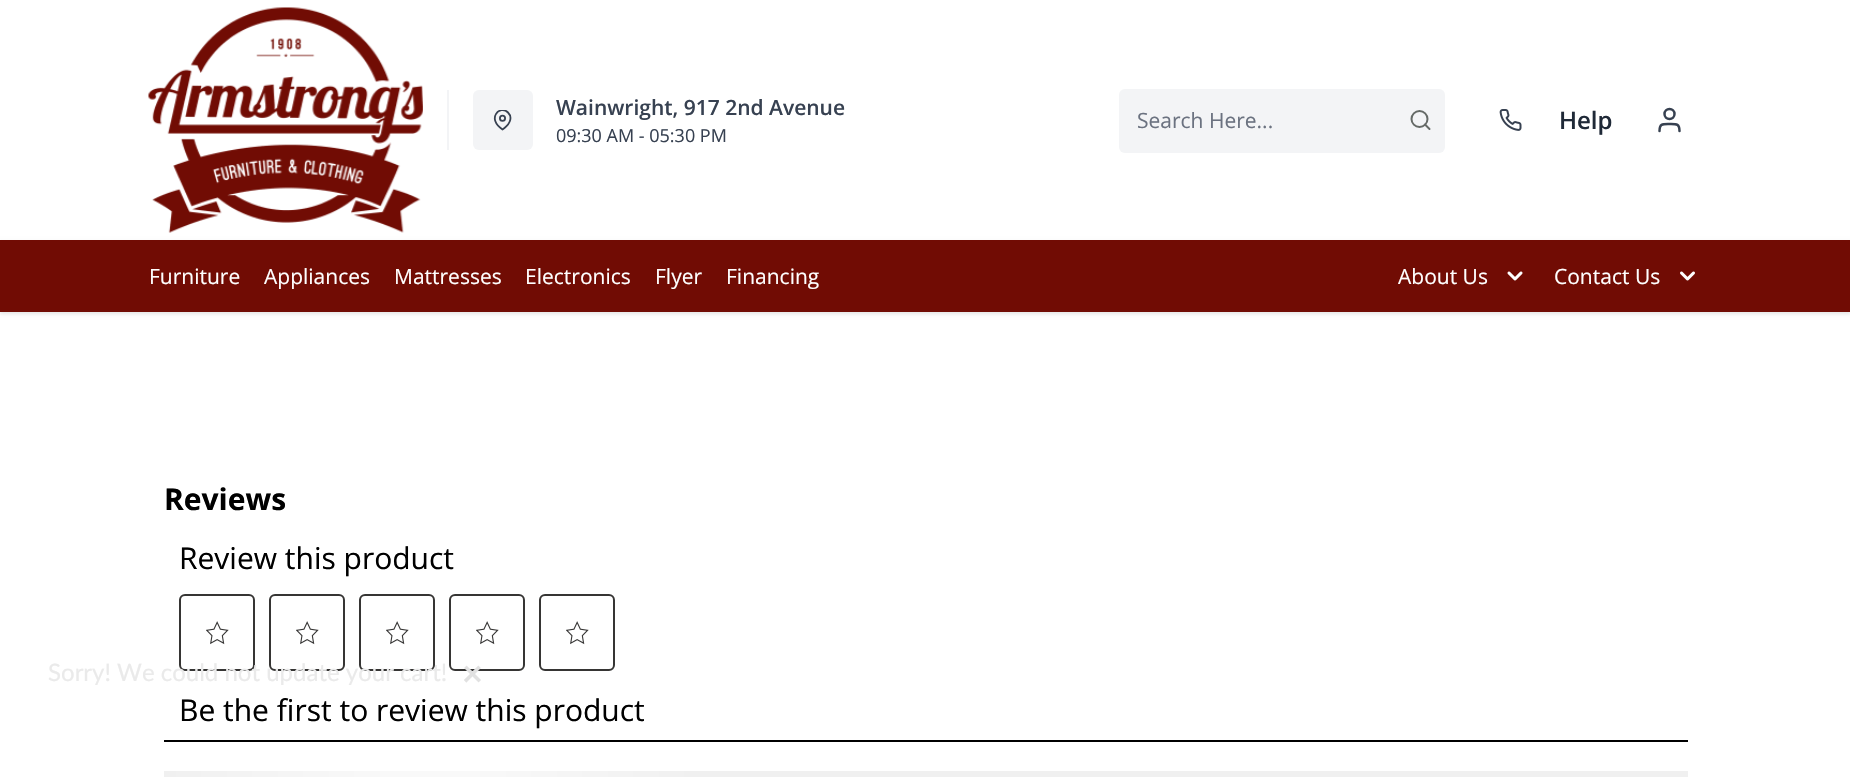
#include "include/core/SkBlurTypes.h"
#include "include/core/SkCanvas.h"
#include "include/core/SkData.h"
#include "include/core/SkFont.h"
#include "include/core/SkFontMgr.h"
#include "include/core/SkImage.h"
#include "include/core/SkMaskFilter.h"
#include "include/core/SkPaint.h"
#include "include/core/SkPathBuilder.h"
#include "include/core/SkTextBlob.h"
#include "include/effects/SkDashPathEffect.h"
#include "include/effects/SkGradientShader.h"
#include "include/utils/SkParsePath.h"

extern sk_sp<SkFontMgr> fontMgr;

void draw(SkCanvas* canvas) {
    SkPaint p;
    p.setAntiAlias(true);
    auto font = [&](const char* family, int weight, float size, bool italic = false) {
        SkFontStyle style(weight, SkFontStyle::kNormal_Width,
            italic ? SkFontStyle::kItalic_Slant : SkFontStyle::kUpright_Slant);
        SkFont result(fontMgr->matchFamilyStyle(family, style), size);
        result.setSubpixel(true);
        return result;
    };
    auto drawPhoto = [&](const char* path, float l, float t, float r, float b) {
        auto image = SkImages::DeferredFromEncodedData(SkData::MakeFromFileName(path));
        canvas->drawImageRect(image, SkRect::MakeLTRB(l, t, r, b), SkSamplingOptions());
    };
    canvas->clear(0xFFFFFFFF);
    drawPhoto("media/1.png", 148, 7, 423, 233);
    p.setColor(0xFFF3F4F6);
    canvas->drawRect(SkRect::MakeLTRB(447, 90, 449, 150), p);
    canvas->drawRoundRect(SkRect::MakeLTRB(473, 90, 533, 150), 6, 6, p);
    canvas->save();
    canvas->clipRect(SkRect::MakeLTRB(492, 110, 513, 131));
    p.setStyle(SkPaint::kStroke_Style);
    p.setStrokeWidth(1.8f);
    p.setStrokeCap(SkPaint::kRound_Cap);
    p.setStrokeJoin(SkPaint::kRound_Join);
    p.setColor(0xFF374151);
    canvas->drawPath(SkPathBuilder().moveTo(510.5f, 118).cubicTo(510.5f, 124.5f, 502.5f, 129.5f, 502.5f, 129.5f).cubicTo(486, 118.5f, 500, 104.5f, 508, 112.5f).cubicTo(509.5f, 114, 510.5f, 116, 510.5f, 118).close().detach(), p);
    canvas->restore();
    p.setStrokeCap(SkPaint::kButt_Cap);
    p.setStrokeJoin(SkPaint::kMiter_Join);
    canvas->drawCircle(502.5f, 118.2f, 2.6f, p);
    auto font1 = font("Open Sans", 600, 21);
    p.setStyle(SkPaint::kFill_Style);
    canvas->drawString("Wainwright, 917 2nd Avenue", 556, 115, font1, p);
    auto font2 = font("Open Sans", 400, 18);
    canvas->drawString("09:30 AM - 05:30 PM", 556, 142, font2, p);
    p.setColor(0xFFF3F4F6);
    canvas->drawRoundRect(SkRect::MakeLTRB(1119, 89, 1445, 153), 6, 6, p);
    auto font3 = font("Open Sans", 400, 21);
    p.setColor(0xFF6B7280);
    canvas->drawString("Search Here...", 1137, 128, font3, p);
    p.setStyle(SkPaint::kStroke_Style);
    p.setStrokeWidth(2);
    p.setColor(0xFF656A67);
    canvas->drawCircle(1419.5f, 119, 8, p);
    p.setStrokeCap(SkPaint::kRound_Cap);
    p.setStrokeJoin(SkPaint::kRound_Join);
    canvas->drawPath(SkPathBuilder().moveTo(1429.5f, 129).lineTo(1425, 124.5f).detach(), p);
    drawPhoto("media/2.png", 1499, 109, 1522, 131);
    auto font4 = font("Open Sans", 600, 24);
    p.setStyle(SkPaint::kFill_Style);
    p.setColor(0xFF1F2937);
    canvas->drawString("Help", 1559, 129, font4, p);
    p.setStyle(SkPaint::kStroke_Style);
    p.setStrokeWidth(2.5f);
    p.setColor(0xFF374151);
    canvas->drawPath(SkPathBuilder().moveTo(1679.5f, 131).cubicTo(1679.5f, 123.5f, 1676.5f, 124, 1669.5f, 124).cubicTo(1662.5f, 124, 1659.5f, 123.5f, 1659.5f, 131).detach(), p);
    p.setStrokeCap(SkPaint::kButt_Cap);
    p.setStrokeJoin(SkPaint::kMiter_Join);
    canvas->drawCircle(1669.5f, 114, 5, p);
    p.setStyle(SkPaint::kFill_Style);
    p.setColor(0x0D000000);
    p.setMaskFilter(SkMaskFilter::MakeBlur(kNormal_SkBlurStyle, 1.5f));
    canvas->drawRect(SkRect::MakeLTRB(0, 242, 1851, 314), p);
    p.setMaskFilter(nullptr);
    p.setMaskFilter(SkMaskFilter::MakeBlur(kNormal_SkBlurStyle, 2));
    canvas->drawRect(SkRect::MakeLTRB(0, 242, 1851, 314), p);
    p.setMaskFilter(nullptr);
    p.setColor(0xFF710C04);
    canvas->drawRect(SkRect::MakeLTRB(0, 240, 1850, 312), p);
    p.setColor(0xFFFFFFFF);
    {
        const struct { const char* s; float x, y; } items[] = {
            {"Furniture", 149, 284},
            {"Appliances", 264, 284},
            {"Mattresses", 394, 284},
            {"Electronics", 525, 284},
            {"Flyer", 655, 284},
            {"Financing", 726, 284},
            {"About Us", 1398, 284},
        };
        for (auto [s, x, y] : items) {
            canvas->drawString(s, x, y, font3, p);
        }
    }
    drawPhoto("media/3.png", 1507, 271, 1523, 281);
    canvas->drawString("Contact Us", 1554, 284, font3, p);
    drawPhoto("media/4.png", 1680, 271, 1695, 281);
    auto font5 = font("Open Sans", 700, 30);
    p.setColor(0xFF000000);
    canvas->drawString("Reviews", 164, 510, font5, p);
    canvas->drawRect(SkRect::MakeLTRB(164, 740, 1688, 742), p);
    auto font6 = font("Open Sans", 400, 30);
    canvas->drawString("Review this product", 179, 569, font6, p);
    p.setStyle(SkPaint::kStroke_Style);
    p.setStrokeWidth(2);
    p.setColor(0xFF363534);
    canvas->drawRoundRect(SkRect::MakeLTRB(180, 595, 254, 670), 5, 5, p);
    drawPhoto("media/5.png", 206, 621, 229, 645);
    canvas->drawRoundRect(SkRect::MakeLTRB(270, 595, 344, 670), 5, 5, p);
    drawPhoto("media/5.png", 296, 621, 319, 645);
    canvas->drawRoundRect(SkRect::MakeLTRB(360, 595, 434, 670), 5, 5, p);
    drawPhoto("media/5.png", 386, 621, 409, 645);
    canvas->drawRoundRect(SkRect::MakeLTRB(450, 595, 524, 670), 5, 5, p);
    drawPhoto("media/5.png", 476, 621, 499, 645);
    canvas->drawRoundRect(SkRect::MakeLTRB(540, 595, 614, 670), 5, 5, p);
    drawPhoto("media/5.png", 566, 621, 589, 645);
    p.setStyle(SkPaint::kFill_Style);
    p.setColor(0xFF000000);
    canvas->drawString("Be the first to review this product", 179, 721, font6, p);
    p.setColor(0xFFF0F0F0);
    canvas->drawRect(SkRect::MakeLTRB(164, 771, 1688, 777), p);
    {
        const SkColor colors[] = {0xFFF0F0F0, 0xFFF9F9F9, 0xFFF9F9F9, 0xFFF0F0F0};
        const float stops[] = {0, 0.43f, 0.57f, 1};
        const SkPoint ends[] = {{163, 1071}, {697, 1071}};
        p.setShader(SkGradientShader::MakeLinear(ends, colors, stops, 4, SkTileMode::kClamp));
        p.setAlpha(255);
    }
    canvas->drawPath(SkPathBuilder().moveTo(172, 771).lineTo(698, 771).lineTo(698, 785).lineTo(172, 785).cubicTo(167.5f, 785, 164, 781.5f, 164, 777).lineTo(164, 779).cubicTo(164, 774.5f, 167.5f, 771, 172, 771).close().detach(), p);
    auto font7 = font("Lato", 400, 24);
    p.setShader(nullptr);
    p.setColor(0xFFEAEAEA);
    canvas->drawString("Sorry! We could not update your cart!", 48, 681, font7, p);
    auto font8 = font("Lato", 700, 36);
    p.setColor(0xFFE1E1E1);
    canvas->drawString("×", 462, 686, font8, p);
}
